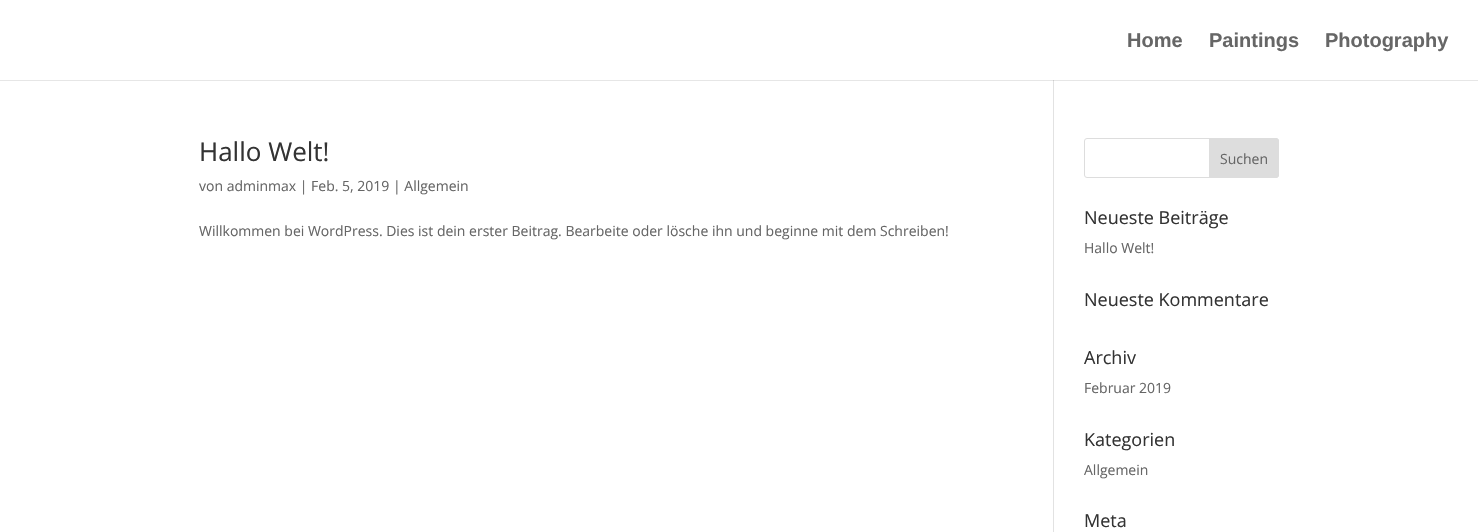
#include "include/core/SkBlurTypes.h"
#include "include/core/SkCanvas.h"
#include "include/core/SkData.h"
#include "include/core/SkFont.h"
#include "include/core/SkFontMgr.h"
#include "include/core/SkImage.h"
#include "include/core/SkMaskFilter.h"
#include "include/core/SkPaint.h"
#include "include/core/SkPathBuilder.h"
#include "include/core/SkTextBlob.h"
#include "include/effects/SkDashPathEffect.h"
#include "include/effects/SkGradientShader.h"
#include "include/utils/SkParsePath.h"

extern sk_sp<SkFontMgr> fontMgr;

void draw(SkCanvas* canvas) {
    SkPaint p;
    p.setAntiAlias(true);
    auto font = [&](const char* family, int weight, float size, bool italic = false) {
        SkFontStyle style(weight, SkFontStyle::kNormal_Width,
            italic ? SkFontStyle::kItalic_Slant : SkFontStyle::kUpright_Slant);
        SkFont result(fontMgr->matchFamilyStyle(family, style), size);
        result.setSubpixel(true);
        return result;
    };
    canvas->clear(0xFFFFFFFF);
    p.setColor(0xFFE6E6E6);
    canvas->drawRect(SkRect::MakeLTRB(0, 80, 1478, 81), p);
    auto font1 = font("Liberation Sans", 700, 20);
    p.setColor(0xFF666666);
    {
        const struct { const char* s; float x, y; } items[] = {
            {"Home", 1127, 47},
            {"Paintings", 1209, 47},
            {"Photography", 1325, 47},
        };
        for (auto [s, x, y] : items) {
            canvas->drawString(s, x, y, font1, p);
        }
    }
    p.setColor(0xFFE2E2E2);
    canvas->drawRect(SkRect::MakeLTRB(1053, 80, 1054, 532), p);
    p.setColor(0xFFCBCBCB);
    canvas->drawRect(SkRect::MakeLTRB(1053, 80, 1054, 81), p);
    auto font2 = font("Open Sans", 400, 26);
    p.setColor(0xFF333333);
    canvas->drawString("Hallo Welt!", 199, 161, font2, p);
    auto font3 = font("Open Sans", 400, 14);
    p.setColor(0xFF666666);
    canvas->drawString("von adminmax | Feb. 5, 2019 | Allgemein", 199, 191, font3, p);
    canvas->drawString("Willkommen bei WordPress. Dies ist dein erster Beitrag. Bearbeite oder lösche ihn und beginne mit dem Schreiben!", 199, 236, font3, p);
    p.setStyle(SkPaint::kStroke_Style);
    p.setStrokeWidth(1);
    p.setColor(0xFFDDDDDD);
    canvas->drawRoundRect(SkRect::MakeLTRB(1084.5f, 138.5f, 1278.5f, 177.5f), 2.5f, 2.5f, p);
    p.setStyle(SkPaint::kFill_Style);
    canvas->drawPath(SkPathBuilder().moveTo(1209.5f, 138.5f).lineTo(1276, 138.5f).cubicTo(1277.5f, 138.5f, 1278.5f, 139.5f, 1278.5f, 141).lineTo(1278.5f, 175).cubicTo(1278.5f, 176.5f, 1277.5f, 177.5f, 1276, 177.5f).lineTo(1209.5f, 177.5f).close().detach(), p);
    p.setStyle(SkPaint::kStroke_Style);
    canvas->drawPath(SkPathBuilder().moveTo(1209.5f, 138.5f).lineTo(1276, 138.5f).cubicTo(1277.5f, 138.5f, 1278.5f, 139.5f, 1278.5f, 141).lineTo(1278.5f, 175).cubicTo(1278.5f, 176.5f, 1277.5f, 177.5f, 1276, 177.5f).lineTo(1209.5f, 177.5f).close().detach(), p);
    p.setStyle(SkPaint::kFill_Style);
    p.setColor(0xFF666666);
    canvas->drawString("Suchen", 1220, 164, font3, p);
    auto font4 = font("Open Sans", 400, 18);
    p.setColor(0xFF333333);
    canvas->drawString("Neueste Beiträge", 1084, 224, font4, p);
    p.setColor(0xFF666666);
    canvas->drawString("Hallo Welt!", 1084, 253, font3, p);
    p.setColor(0xFF333333);
    canvas->drawString("Neueste Kommentare", 1084, 306, font4, p);
    canvas->drawString("Archiv", 1084, 364, font4, p);
    p.setColor(0xFF666666);
    canvas->drawString("Februar 2019", 1084, 393, font3, p);
    p.setColor(0xFF333333);
    canvas->drawString("Kategorien", 1084, 446, font4, p);
    p.setColor(0xFF666666);
    canvas->drawString("Allgemein", 1084, 475, font3, p);
    p.setColor(0xFF333333);
    canvas->drawString("Meta", 1084, 527, font4, p);
}
